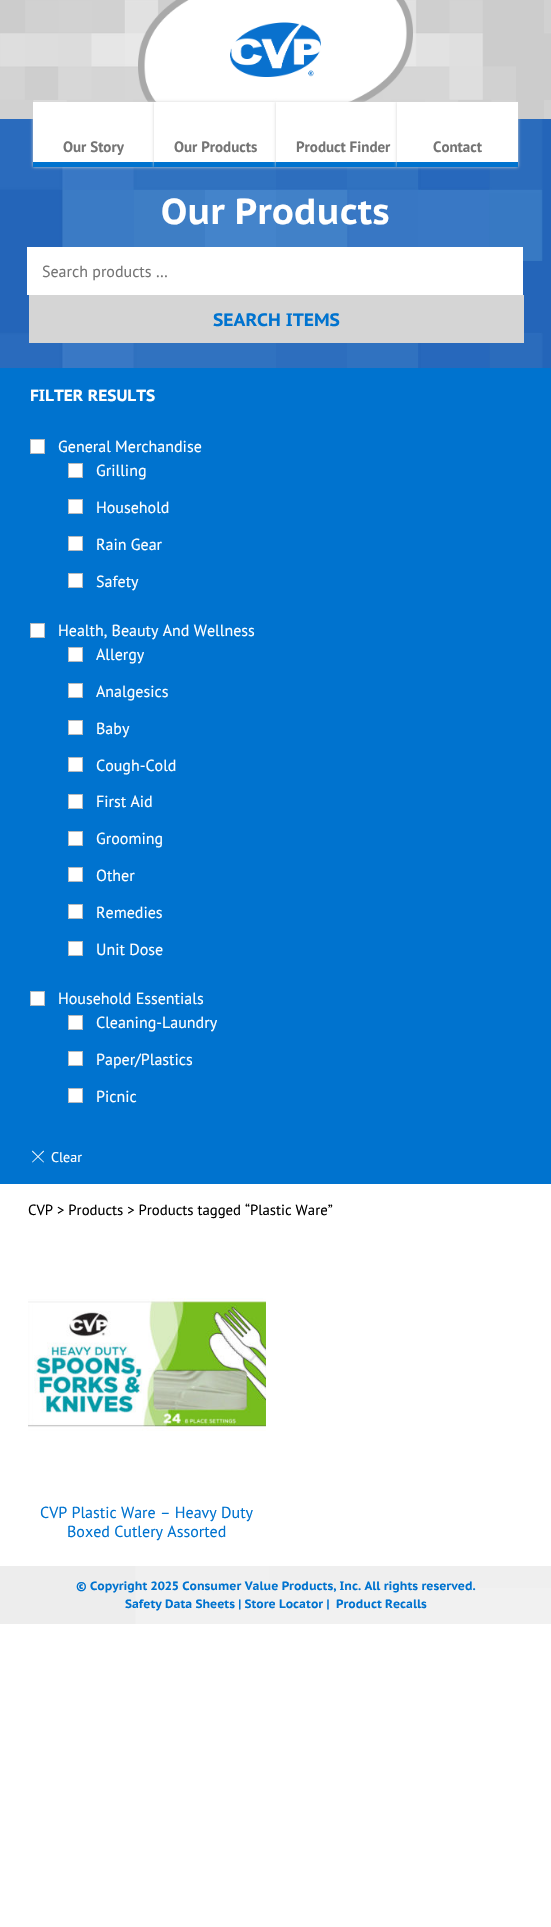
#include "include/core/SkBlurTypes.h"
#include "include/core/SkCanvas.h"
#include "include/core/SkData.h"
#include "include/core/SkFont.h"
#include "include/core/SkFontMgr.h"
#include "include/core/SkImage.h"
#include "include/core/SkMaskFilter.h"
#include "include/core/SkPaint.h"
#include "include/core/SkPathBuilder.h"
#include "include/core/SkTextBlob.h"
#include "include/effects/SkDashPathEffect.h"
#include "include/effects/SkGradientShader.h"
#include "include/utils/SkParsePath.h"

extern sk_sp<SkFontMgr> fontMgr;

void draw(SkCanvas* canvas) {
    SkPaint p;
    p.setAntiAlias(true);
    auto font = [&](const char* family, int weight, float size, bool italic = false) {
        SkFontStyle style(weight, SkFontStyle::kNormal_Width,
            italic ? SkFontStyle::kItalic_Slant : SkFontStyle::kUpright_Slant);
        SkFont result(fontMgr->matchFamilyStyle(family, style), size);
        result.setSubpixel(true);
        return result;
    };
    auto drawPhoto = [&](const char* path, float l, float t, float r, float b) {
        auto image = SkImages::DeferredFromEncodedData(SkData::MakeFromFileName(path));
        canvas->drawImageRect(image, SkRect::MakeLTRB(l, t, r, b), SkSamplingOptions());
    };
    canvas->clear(0xFFFFFFFF);
    drawPhoto("media/1.png", 0, 0, 551, 119);
    drawPhoto("media/2.png", 138, 0, 413, 102);
    drawPhoto("media/3.png", 0, 119, 551, 368);
    p.setColor(0xFFD4D4D4);
    p.setMaskFilter(SkMaskFilter::MakeBlur(kNormal_SkBlurStyle, 1.5f));
    canvas->drawRect(SkRect::MakeLTRB(33, 102, 154, 167), p);
    p.setMaskFilter(nullptr);
    p.setColor(0xFFFFFFFF);
    canvas->drawRect(SkRect::MakeLTRB(33, 102, 154, 162), p);
    p.setColor(0xFF0073CF);
    canvas->drawRect(SkRect::MakeLTRB(33, 162, 154, 167), p);
    auto font1 = font("PT Sans", 700, 15);
    p.setColor(0xFF757575);
    canvas->drawString("Our Story", 63, 152, font1, p);
    p.setColor(0xFFD4D4D4);
    p.setMaskFilter(SkMaskFilter::MakeBlur(kNormal_SkBlurStyle, 1.5f));
    canvas->drawRect(SkRect::MakeLTRB(154, 102, 276, 167), p);
    p.setMaskFilter(nullptr);
    p.setColor(0xFFFFFFFF);
    canvas->drawRect(SkRect::MakeLTRB(154, 102, 276, 162), p);
    p.setColor(0xFF0073CF);
    canvas->drawRect(SkRect::MakeLTRB(154, 162, 276, 167), p);
    p.setColor(0xFF757575);
    canvas->drawString("Our Products", 174, 152, font1, p);
    p.setColor(0xFFD4D4D4);
    p.setMaskFilter(SkMaskFilter::MakeBlur(kNormal_SkBlurStyle, 1.5f));
    canvas->drawRect(SkRect::MakeLTRB(276, 102, 397, 167), p);
    p.setMaskFilter(nullptr);
    p.setColor(0xFFFFFFFF);
    canvas->drawRect(SkRect::MakeLTRB(276, 102, 397, 162), p);
    p.setColor(0xFF0073CF);
    canvas->drawRect(SkRect::MakeLTRB(276, 162, 397, 167), p);
    p.setColor(0xFF757575);
    canvas->drawString("Product Finder", 296, 152, font1, p);
    p.setColor(0xFFD4D4D4);
    p.setMaskFilter(SkMaskFilter::MakeBlur(kNormal_SkBlurStyle, 1.5f));
    canvas->drawRect(SkRect::MakeLTRB(397, 102, 518, 167), p);
    p.setMaskFilter(nullptr);
    p.setColor(0xFFFFFFFF);
    canvas->drawRect(SkRect::MakeLTRB(397, 102, 518, 162), p);
    p.setColor(0xFF0073CF);
    canvas->drawRect(SkRect::MakeLTRB(397, 162, 518, 167), p);
    p.setColor(0xFF757575);
    canvas->drawString("Contact", 433, 152, font1, p);
    auto font2 = font("PT Sans Caption", 700, 36);
    p.setColor(0xFFFFFFFF);
    canvas->drawString("Our Products", 161, 224, font2, p);
    canvas->drawRect(SkRect::MakeLTRB(27, 247, 523, 295), p);
    auto font3 = font("PT Sans", 400, 16);
    p.setColor(0xFF757575);
    canvas->drawString("Search products …", 42, 277, font3, p);
    p.setColor(0xFFD5D5D5);
    canvas->drawRect(SkRect::MakeLTRB(29, 295, 524, 343), p);
    auto font4 = font("PT Sans Caption", 700, 18);
    p.setColor(0xFF0073CF);
    canvas->drawString("SEARCH ITEMS", 213, 326, font4, p);
    canvas->drawRect(SkRect::MakeLTRB(0, 368, 551, 1184), p);
    auto font5 = font("PT Sans Caption", 700, 16);
    p.setColor(0xFFFFFFFF);
    canvas->drawString("FILTER RESULTS", 30, 401, font5, p);
    canvas->drawRect(SkRect::MakeLTRB(30.5f, 439.5f, 44.5f, 453.5f), p);
    p.setStyle(SkPaint::kStroke_Style);
    p.setStrokeWidth(1);
    p.setColor(0xFFB4B9BE);
    canvas->drawRect(SkRect::MakeLTRB(30.5f, 439.5f, 44.5f, 453.5f), p);
    p.setStyle(SkPaint::kFill_Style);
    p.setColor(0xFFFFFFFF);
    canvas->drawString("General Merchandise", 58, 452, font3, p);
    canvas->drawRect(SkRect::MakeLTRB(68.5f, 463.5f, 82.5f, 477.5f), p);
    p.setStyle(SkPaint::kStroke_Style);
    p.setColor(0xFFB4B9BE);
    canvas->drawRect(SkRect::MakeLTRB(68.5f, 463.5f, 82.5f, 477.5f), p);
    p.setStyle(SkPaint::kFill_Style);
    p.setColor(0xFFFFFFFF);
    canvas->drawString("Grilling", 96, 476, font3, p);
    canvas->drawRect(SkRect::MakeLTRB(68.5f, 499.5f, 82.5f, 513.5f), p);
    p.setStyle(SkPaint::kStroke_Style);
    p.setColor(0xFFB4B9BE);
    canvas->drawRect(SkRect::MakeLTRB(68.5f, 499.5f, 82.5f, 513.5f), p);
    p.setStyle(SkPaint::kFill_Style);
    p.setColor(0xFFFFFFFF);
    canvas->drawString("Household", 96, 513, font3, p);
    canvas->drawRect(SkRect::MakeLTRB(68.5f, 536.5f, 82.5f, 550.5f), p);
    p.setStyle(SkPaint::kStroke_Style);
    p.setColor(0xFFB4B9BE);
    canvas->drawRect(SkRect::MakeLTRB(68.5f, 536.5f, 82.5f, 550.5f), p);
    p.setStyle(SkPaint::kFill_Style);
    p.setColor(0xFFFFFFFF);
    canvas->drawString("Rain Gear", 96, 550, font3, p);
    canvas->drawRect(SkRect::MakeLTRB(68.5f, 573.5f, 82.5f, 587.5f), p);
    p.setStyle(SkPaint::kStroke_Style);
    p.setColor(0xFFB4B9BE);
    canvas->drawRect(SkRect::MakeLTRB(68.5f, 573.5f, 82.5f, 587.5f), p);
    p.setStyle(SkPaint::kFill_Style);
    p.setColor(0xFFFFFFFF);
    canvas->drawString("Safety", 96, 587, font3, p);
    canvas->drawRect(SkRect::MakeLTRB(30.5f, 623.5f, 44.5f, 637.5f), p);
    p.setStyle(SkPaint::kStroke_Style);
    p.setColor(0xFFB4B9BE);
    canvas->drawRect(SkRect::MakeLTRB(30.5f, 623.5f, 44.5f, 637.5f), p);
    p.setStyle(SkPaint::kFill_Style);
    p.setColor(0xFFFFFFFF);
    canvas->drawString("Health, Beauty And Wellness", 58, 636, font3, p);
    canvas->drawRect(SkRect::MakeLTRB(68.5f, 647.5f, 82.5f, 661.5f), p);
    p.setStyle(SkPaint::kStroke_Style);
    p.setColor(0xFFB4B9BE);
    canvas->drawRect(SkRect::MakeLTRB(68.5f, 647.5f, 82.5f, 661.5f), p);
    p.setStyle(SkPaint::kFill_Style);
    p.setColor(0xFFFFFFFF);
    canvas->drawString("Allergy", 96, 660, font3, p);
    canvas->drawRect(SkRect::MakeLTRB(68.5f, 683.5f, 82.5f, 697.5f), p);
    p.setStyle(SkPaint::kStroke_Style);
    p.setColor(0xFFB4B9BE);
    canvas->drawRect(SkRect::MakeLTRB(68.5f, 683.5f, 82.5f, 697.5f), p);
    p.setStyle(SkPaint::kFill_Style);
    p.setColor(0xFFFFFFFF);
    canvas->drawString("Analgesics", 96, 697, font3, p);
    canvas->drawRect(SkRect::MakeLTRB(68.5f, 720.5f, 82.5f, 734.5f), p);
    p.setStyle(SkPaint::kStroke_Style);
    p.setColor(0xFFB4B9BE);
    canvas->drawRect(SkRect::MakeLTRB(68.5f, 720.5f, 82.5f, 734.5f), p);
    p.setStyle(SkPaint::kFill_Style);
    p.setColor(0xFFFFFFFF);
    canvas->drawString("Baby", 96, 734, font3, p);
    canvas->drawRect(SkRect::MakeLTRB(68.5f, 757.5f, 82.5f, 771.5f), p);
    p.setStyle(SkPaint::kStroke_Style);
    p.setColor(0xFFB4B9BE);
    canvas->drawRect(SkRect::MakeLTRB(68.5f, 757.5f, 82.5f, 771.5f), p);
    p.setStyle(SkPaint::kFill_Style);
    p.setColor(0xFFFFFFFF);
    canvas->drawString("Cough-Cold", 96, 771, font3, p);
    canvas->drawRect(SkRect::MakeLTRB(68.5f, 794.5f, 82.5f, 808.5f), p);
    p.setStyle(SkPaint::kStroke_Style);
    p.setColor(0xFFB4B9BE);
    canvas->drawRect(SkRect::MakeLTRB(68.5f, 794.5f, 82.5f, 808.5f), p);
    p.setStyle(SkPaint::kFill_Style);
    p.setColor(0xFFFFFFFF);
    canvas->drawString("First Aid", 96, 807, font3, p);
    canvas->drawRect(SkRect::MakeLTRB(68.5f, 831.5f, 82.5f, 845.5f), p);
    p.setStyle(SkPaint::kStroke_Style);
    p.setColor(0xFFB4B9BE);
    canvas->drawRect(SkRect::MakeLTRB(68.5f, 831.5f, 82.5f, 845.5f), p);
    p.setStyle(SkPaint::kFill_Style);
    p.setColor(0xFFFFFFFF);
    canvas->drawString("Grooming", 96, 844, font3, p);
    canvas->drawRect(SkRect::MakeLTRB(68.5f, 867.5f, 82.5f, 881.5f), p);
    p.setStyle(SkPaint::kStroke_Style);
    p.setColor(0xFFB4B9BE);
    canvas->drawRect(SkRect::MakeLTRB(68.5f, 867.5f, 82.5f, 881.5f), p);
    p.setStyle(SkPaint::kFill_Style);
    p.setColor(0xFFFFFFFF);
    canvas->drawString("Other", 96, 881, font3, p);
    canvas->drawRect(SkRect::MakeLTRB(68.5f, 904.5f, 82.5f, 918.5f), p);
    p.setStyle(SkPaint::kStroke_Style);
    p.setColor(0xFFB4B9BE);
    canvas->drawRect(SkRect::MakeLTRB(68.5f, 904.5f, 82.5f, 918.5f), p);
    p.setStyle(SkPaint::kFill_Style);
    p.setColor(0xFFFFFFFF);
    canvas->drawString("Remedies", 96, 918, font3, p);
    canvas->drawRect(SkRect::MakeLTRB(68.5f, 941.5f, 82.5f, 955.5f), p);
    p.setStyle(SkPaint::kStroke_Style);
    p.setColor(0xFFB4B9BE);
    canvas->drawRect(SkRect::MakeLTRB(68.5f, 941.5f, 82.5f, 955.5f), p);
    p.setStyle(SkPaint::kFill_Style);
    p.setColor(0xFFFFFFFF);
    canvas->drawString("Unit Dose", 96, 955, font3, p);
    canvas->drawRect(SkRect::MakeLTRB(30.5f, 991.5f, 44.5f, 1005.5f), p);
    p.setStyle(SkPaint::kStroke_Style);
    p.setColor(0xFFB4B9BE);
    canvas->drawRect(SkRect::MakeLTRB(30.5f, 991.5f, 44.5f, 1005.5f), p);
    p.setStyle(SkPaint::kFill_Style);
    p.setColor(0xFFFFFFFF);
    canvas->drawString("Household Essentials", 58, 1004, font3, p);
    canvas->drawRect(SkRect::MakeLTRB(68.5f, 1015.5f, 82.5f, 1029.5f), p);
    p.setStyle(SkPaint::kStroke_Style);
    p.setColor(0xFFB4B9BE);
    canvas->drawRect(SkRect::MakeLTRB(68.5f, 1015.5f, 82.5f, 1029.5f), p);
    p.setStyle(SkPaint::kFill_Style);
    p.setColor(0xFFFFFFFF);
    canvas->drawString("Cleaning-Laundry", 96, 1028, font3, p);
    canvas->drawRect(SkRect::MakeLTRB(68.5f, 1051.5f, 82.5f, 1065.5f), p);
    p.setStyle(SkPaint::kStroke_Style);
    p.setColor(0xFFB4B9BE);
    canvas->drawRect(SkRect::MakeLTRB(68.5f, 1051.5f, 82.5f, 1065.5f), p);
    p.setStyle(SkPaint::kFill_Style);
    p.setColor(0xFFFFFFFF);
    canvas->drawString("Paper/Plastics", 96, 1065, font3, p);
    canvas->drawRect(SkRect::MakeLTRB(68.5f, 1088.5f, 82.5f, 1102.5f), p);
    p.setStyle(SkPaint::kStroke_Style);
    p.setColor(0xFFB4B9BE);
    canvas->drawRect(SkRect::MakeLTRB(68.5f, 1088.5f, 82.5f, 1102.5f), p);
    p.setStyle(SkPaint::kFill_Style);
    p.setColor(0xFFFFFFFF);
    canvas->drawString("Picnic", 96, 1102, font3, p);
    canvas->drawPath(SkPathBuilder().moveTo(32, 1162).lineTo(43.5f, 1150.5f).lineTo(44, 1151.5f).lineTo(32.5f, 1162.5f).close().detach(), p);
    canvas->drawPath(SkPathBuilder().moveTo(32.5f, 1150.5f).lineTo(44, 1162).lineTo(43.5f, 1162.5f).lineTo(32, 1151.5f).close().detach(), p);
    auto font6 = font("PT Sans", 400, 14);
    canvas->drawString("Clear", 51, 1162, font6, p);
    auto font7 = font("PT Sans", 400, 14.75f);
    p.setColor(0xFF000000);
    canvas->drawString("CVP > Products > Products tagged “Plastic Ware”", 28, 1215, font7, p);
    drawPhoto("media/4.png", 28, 1298, 266, 1431);
    p.setColor(0xFF0073CF);
    canvas->drawString("CVP Plastic Ware – Heavy Duty", 40, 1518, font3, p);
    canvas->drawString("Boxed Cutlery Assorted", 67, 1537, font3, p);
    drawPhoto("media/5.png", 0, 1566, 551, 1624);
    auto font8 = font("PT Sans Caption", 700, 12);
    {
        const struct { const char* s; float x, y; } items[] = {
            {"© Copyright 2025 Consumer Value Products, Inc. All rights reserved.", 76, 1590},
            {"Safety Data Sheets | Store Locator |", 125, 1608},
            {"Product Recalls", 336, 1608},
        };
        for (auto [s, x, y] : items) {
            canvas->drawString(s, x, y, font8, p);
        }
    }
}
